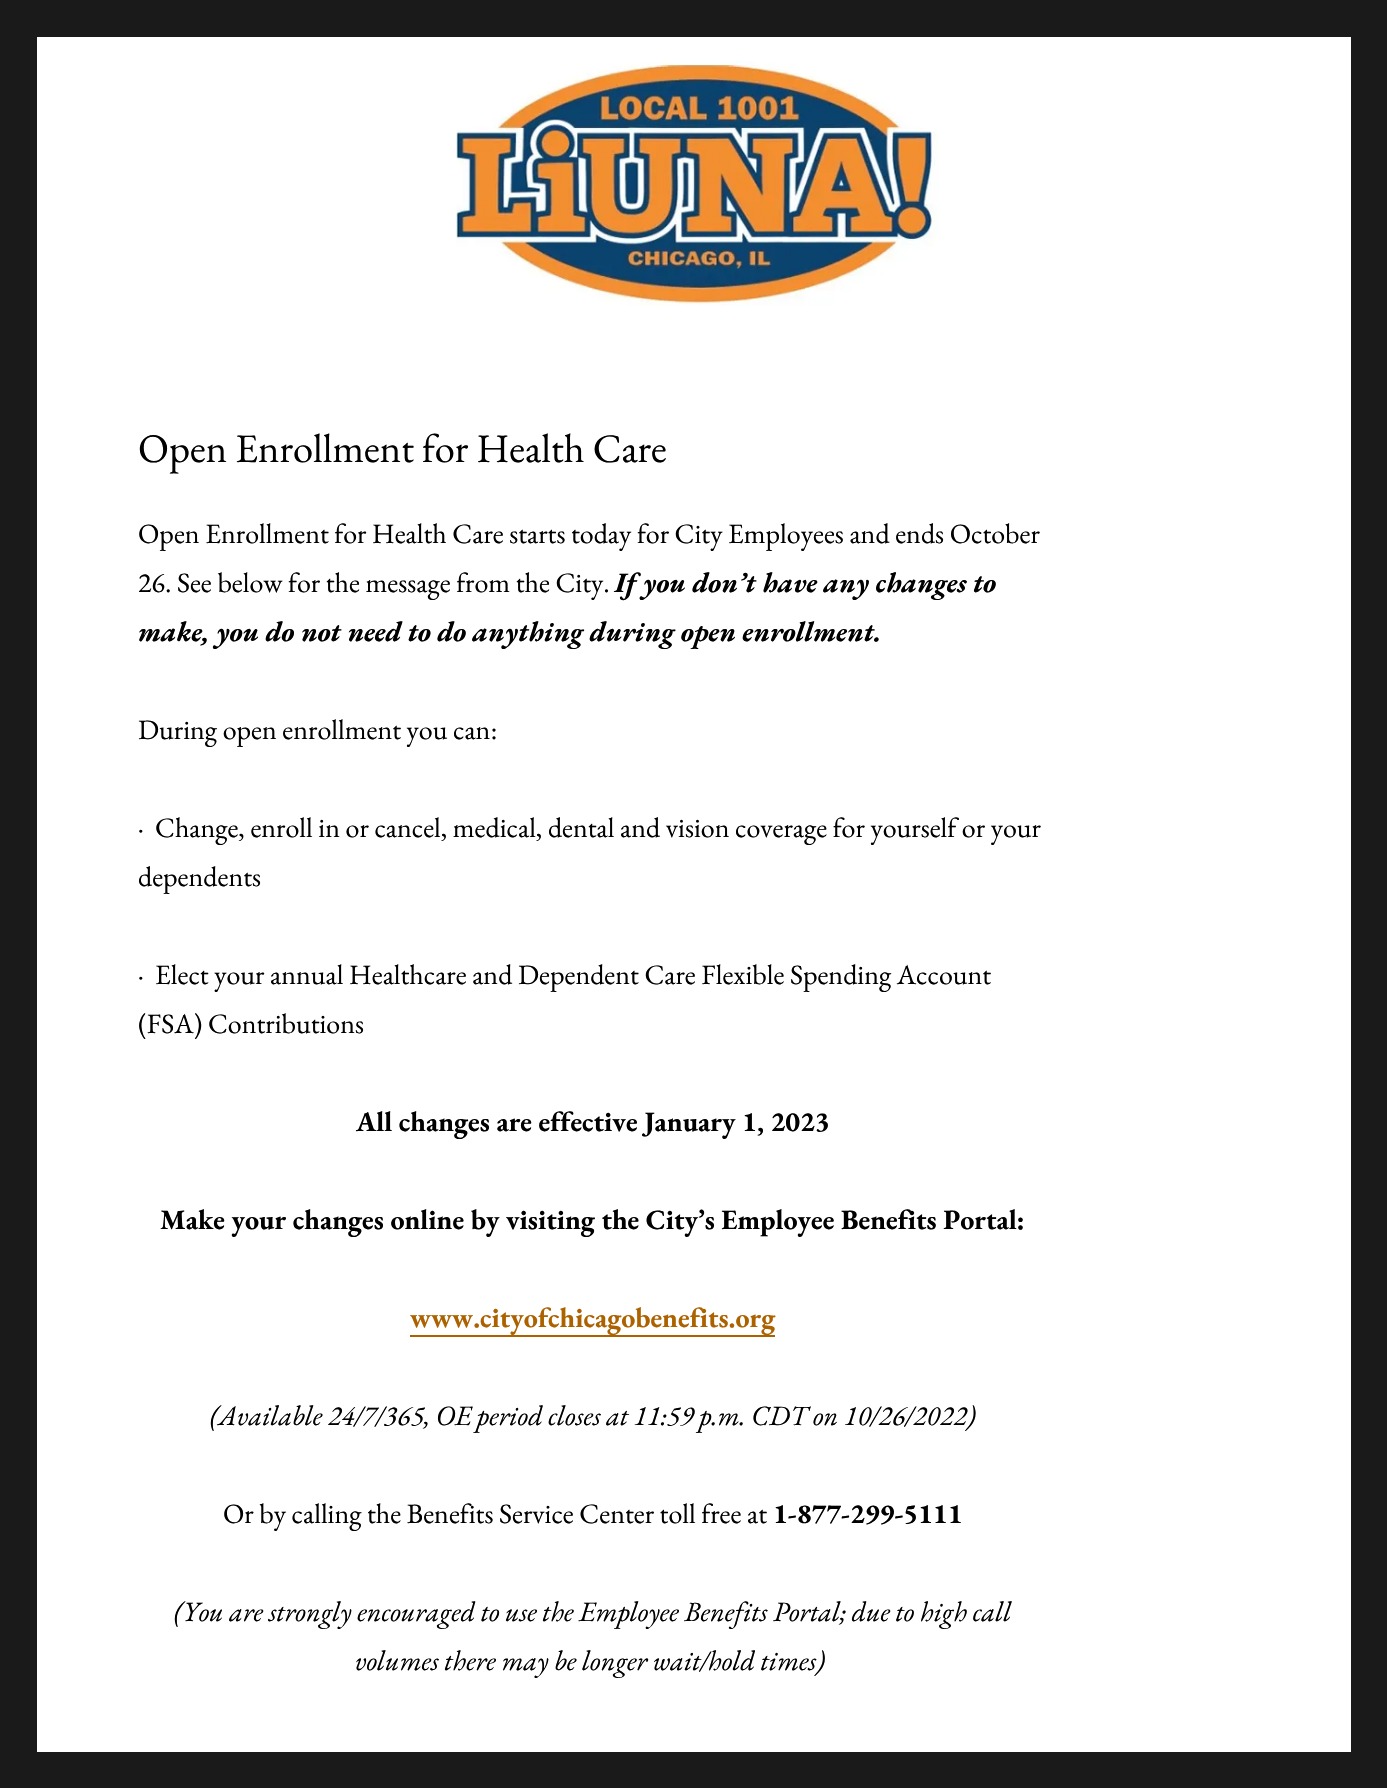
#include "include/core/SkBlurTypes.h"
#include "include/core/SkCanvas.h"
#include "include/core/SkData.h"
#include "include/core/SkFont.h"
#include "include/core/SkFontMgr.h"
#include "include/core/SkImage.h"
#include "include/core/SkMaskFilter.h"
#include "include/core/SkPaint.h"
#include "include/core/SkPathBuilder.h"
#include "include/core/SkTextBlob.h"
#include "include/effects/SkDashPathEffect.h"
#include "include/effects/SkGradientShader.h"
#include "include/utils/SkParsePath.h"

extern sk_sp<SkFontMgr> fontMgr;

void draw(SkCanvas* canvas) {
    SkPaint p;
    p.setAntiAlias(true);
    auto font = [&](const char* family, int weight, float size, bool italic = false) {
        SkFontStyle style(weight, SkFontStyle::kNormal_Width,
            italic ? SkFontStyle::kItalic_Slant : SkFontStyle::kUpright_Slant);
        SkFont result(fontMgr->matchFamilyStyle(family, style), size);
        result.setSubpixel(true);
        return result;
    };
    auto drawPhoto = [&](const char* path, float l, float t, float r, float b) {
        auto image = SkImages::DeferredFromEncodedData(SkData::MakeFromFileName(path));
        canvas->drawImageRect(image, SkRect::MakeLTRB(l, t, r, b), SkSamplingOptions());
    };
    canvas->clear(0xFF1A1A1A);
    p.setColor(0xFFFFFFFF);
    canvas->drawRect(SkRect::MakeLTRB(37, 37, 1351, 1752), p);
    drawPhoto("media/1.png", 456, 61, 939, 306);
    auto font1 = font("EB Garamond", 400, 40.5f);
    p.setColor(0xFF000000);
    canvas->drawString("Open Enrollment for Health Care", 138, 462, font1, p);
    auto font2 = font("EB Garamond", 400, 28);
    canvas->drawString("Open Enrollment for Health Care starts today for City Employees and ends October", 138, 543, font2, p);
    canvas->drawString("26. See below for the message from the City.", 138, 592, font2, p);
    auto font3 = font("EB Garamond", 700, 28, true);
    canvas->drawString("If you don’t have any changes to", 615, 592, font3, p);
    canvas->drawString("make, you do not need to do anything during open enrollment.", 138, 641, font3, p);
    {
        const struct { const char* s; float x, y; } items[] = {
            {"During open enrollment you can:", 138, 739},
            {"·", 138, 837},
            {"Change, enroll in or cancel, medical, dental and vision coverage for yourself or your", 155, 837},
            {"dependents", 138, 886},
            {"·", 138, 984},
            {"Elect your annual Healthcare and Dependent Care Flexible Spending Account", 155, 984},
            {"(FSA) Contributions", 138, 1033},
        };
        for (auto [s, x, y] : items) {
            canvas->drawString(s, x, y, font2, p);
        }
    }
    auto font4 = font("EB Garamond", 700, 28);
    canvas->drawString("All changes are effective January 1, 2023", 356, 1131, font4, p);
    canvas->drawString("Make your changes online by visiting the City’s Employee Benefits Portal:", 160, 1229, font4, p);
    p.setColor(0xFFAD6200);
    canvas->drawRect(SkRect::MakeLTRB(410, 1335, 775, 1337), p);
    canvas->drawString("www.cityofchicagobenefits.org", 410, 1327, font4, p);
    auto font5 = font("EB Garamond", 400, 28, true);
    p.setColor(0xFF000000);
    canvas->drawString("(Available 24/7/365, OE period closes at 11:59 p.m. CDT on 10/26/2022)", 210, 1425, font5, p);
    canvas->drawString("Or by calling the Benefits Service Center toll free at", 223, 1523, font2, p);
    canvas->drawString("1-877-299-5111", 773, 1523, font4, p);
    canvas->drawString("(You are strongly encouraged to use the Employee Benefits Portal; due to high call", 174, 1621, font5, p);
    canvas->drawString("volumes there may be longer wait/hold times)", 355, 1670, font5, p);
}
